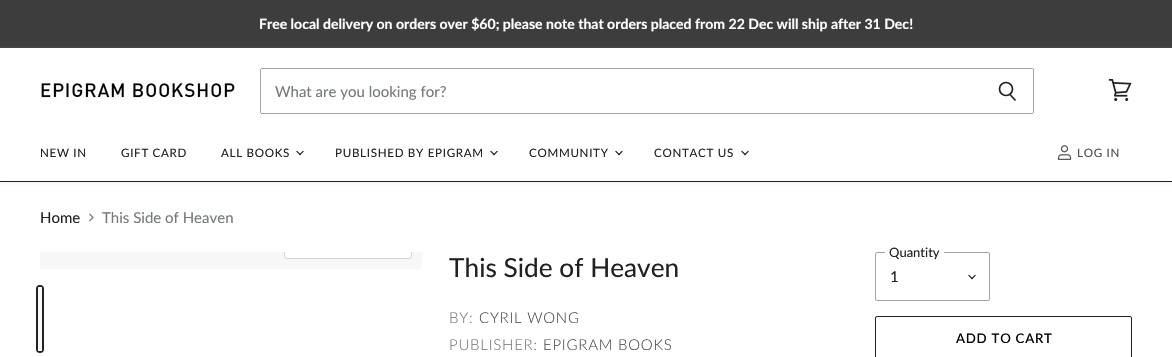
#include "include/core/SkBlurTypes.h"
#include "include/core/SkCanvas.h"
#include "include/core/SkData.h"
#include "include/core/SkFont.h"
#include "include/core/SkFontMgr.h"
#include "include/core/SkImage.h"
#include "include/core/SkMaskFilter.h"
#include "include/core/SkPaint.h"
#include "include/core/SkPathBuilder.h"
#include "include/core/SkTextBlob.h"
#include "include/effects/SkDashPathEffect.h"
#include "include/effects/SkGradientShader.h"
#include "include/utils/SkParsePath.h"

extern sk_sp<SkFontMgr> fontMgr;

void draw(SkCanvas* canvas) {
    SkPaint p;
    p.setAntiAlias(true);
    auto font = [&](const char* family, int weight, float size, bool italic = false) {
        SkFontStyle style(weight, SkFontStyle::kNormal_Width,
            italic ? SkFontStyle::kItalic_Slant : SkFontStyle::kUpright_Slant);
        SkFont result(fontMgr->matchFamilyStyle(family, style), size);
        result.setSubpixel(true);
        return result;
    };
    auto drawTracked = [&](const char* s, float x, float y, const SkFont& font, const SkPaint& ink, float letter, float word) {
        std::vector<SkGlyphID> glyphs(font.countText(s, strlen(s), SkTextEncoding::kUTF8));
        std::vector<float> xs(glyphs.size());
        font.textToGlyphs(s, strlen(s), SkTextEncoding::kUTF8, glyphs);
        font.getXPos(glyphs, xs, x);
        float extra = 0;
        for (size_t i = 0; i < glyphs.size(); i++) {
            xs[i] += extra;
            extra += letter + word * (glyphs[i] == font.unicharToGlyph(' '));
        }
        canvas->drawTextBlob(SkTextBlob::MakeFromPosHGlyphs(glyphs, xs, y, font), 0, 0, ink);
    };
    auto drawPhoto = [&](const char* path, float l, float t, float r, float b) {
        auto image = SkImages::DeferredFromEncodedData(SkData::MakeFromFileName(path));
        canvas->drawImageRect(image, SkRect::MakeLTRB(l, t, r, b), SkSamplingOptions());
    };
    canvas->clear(0xFFFFFFFF);
    p.setColor(0xFF3D3D3D);
    canvas->drawRect(SkRect::MakeLTRB(0, 0, 1172, 48), p);
    auto font1 = font("Lato", 700, 14.05f);
    p.setColor(0xFFFFFFFF);
    canvas->drawString("Free local delivery on orders over $60; please note that orders placed from 22 Dec will ship after 31 Dec!", 259, 29, font1, p);
    canvas->save();
    canvas->clipPath(SkPathBuilder(SkPathFillType::kEvenOdd).moveTo(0, 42).lineTo(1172, 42).lineTo(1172, 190).lineTo(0, 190).close().moveTo(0, 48).lineTo(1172, 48).lineTo(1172, 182).lineTo(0, 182).close().detach(), true);
    p.setColor(0x40BAC0BE);
    p.setMaskFilter(SkMaskFilter::MakeBlur(kNormal_SkBlurStyle, 2));
    canvas->drawRect(SkRect::MakeLTRB(0, 49, 1172, 183), p);
    p.setMaskFilter(nullptr);
    canvas->restore();
    p.setColor(0xFF212121);
    canvas->drawRect(SkRect::MakeLTRB(0, 181, 1172, 182), p);
    drawPhoto("media/1.png", 40, 81, 235, 100);
    {
        const struct { float l, t, r, b; SkColor color; } items[] = {
            {261, 68, 1033, 69, 0xFFA1A6A4},
            {1033, 69, 1034, 113, 0xFFA1A6A4},
            {261, 113, 1033, 114, 0xFFA1A6A4},
        };
        for (auto [l, t, r, b, color] : items) {
            p.setColor(color);
            canvas->drawRect(SkRect::MakeLTRB(l, t, r, b), p);
        }
    }
    p.setStyle(SkPaint::kStroke_Style);
    p.setStrokeWidth(1.7f);
    p.setColor(0xFF212121);
    canvas->drawPath(SkPathBuilder().moveTo(1015.5f, 100.5f).lineTo(1010, 94.5f).detach(), p);
    canvas->drawCircle(1006, 89, 6.5f, p);
    p.setStyle(SkPaint::kFill_Style);
    p.setColor(0xFFA1A6A4);
    canvas->drawRect(SkRect::MakeLTRB(260, 69, 261, 113), p);
    auto font2 = font("Lato", 400, 15);
    p.setColor(0xFF757977);
    canvas->drawString("What are you looking for?", 275, 97, font2, p);
    drawPhoto("media/2.png", 1108, 79, 1132, 101);
    auto font3 = font("Lato", 400, 11.6f);
    p.setColor(0xFF212121);
    {
        const struct { const char* s; float x, y; } items[] = {
            {"NEW IN", 40, 157},
            {"GIFT CARD", 121, 157},
            {"ALL BOOKS", 221, 157},
        };
        for (auto [s, x, y] : items) {
            drawTracked(s, x, y, font3, p, 0.7f, 0);
        }
    }
    drawPhoto("media/3.png", 296, 150, 304, 156);
    drawTracked("PUBLISHED BY EPIGRAM", 335, 157, font3, p, 0.7f, 0);
    drawPhoto("media/3.png", 490, 150, 498, 156);
    drawTracked("COMMUNITY", 529, 157, font3, p, 0.7f, 0);
    drawPhoto("media/3.png", 615, 150, 623, 156);
    drawTracked("CONTACT US", 654, 157, font3, p, 0.7f, 0);
    drawPhoto("media/3.png", 741, 150, 749, 156);
    drawPhoto("media/4.png", 1057, 145, 1072, 160);
    p.setColor(0xFF494E4D);
    drawTracked("LOG IN", 1077, 157, font3, p, 0.7f, 0);
    p.setColor(0xFF212121);
    canvas->drawString("Home", 40, 223, font2, p);
    p.setStyle(SkPaint::kStroke_Style);
    p.setStrokeWidth(1.2f);
    p.setColor(0xFF757977);
    canvas->drawPath(SkPathBuilder().moveTo(89.5f, 221).lineTo(93, 217.5f).lineTo(89.5f, 214).detach(), p);
    p.setStyle(SkPaint::kFill_Style);
    canvas->drawString("This Side of Heaven", 102, 223, font2, p);
    p.setColor(0xFFF7F7F7);
    canvas->drawRect(SkRect::MakeLTRB(40, 252, 422, 269), p);
    canvas->save();
    canvas->clipRect(SkRect::MakeLTRB(40, 252, 422, 269));
    p.setStyle(SkPaint::kStroke_Style);
    p.setStrokeWidth(1);
    p.setColor(0xFFD2D2D2);
    canvas->drawRoundRect(SkRect::MakeLTRB(284.5f, 230.5f, 411.5f, 258.5f), 2.5f, 2.5f, p);
    canvas->restore();
    p.setStyle(SkPaint::kFill_Style);
    p.setColor(0xE6FFFFFF);
    canvas->drawPath(SkPathBuilder().moveTo(285, 252).lineTo(411, 252).lineTo(411, 256).cubicTo(411, 257, 410, 258, 409, 258).lineTo(287, 258).cubicTo(286, 258, 285, 257, 285, 256).close().detach(), p);
    p.setStyle(SkPaint::kStroke_Style);
    p.setStrokeWidth(2);
    p.setColor(0xFF212121);
    canvas->drawRoundRect(SkRect::MakeLTRB(37, 286, 43, 352), 3, 3, p);
    p.setStyle(SkPaint::kFill_Style);
    p.setColor(0xFFF7F7F7);
    canvas->drawRect(SkRect::MakeLTRB(38, 287, 42, 351), p);
    auto font4 = font("Lato", 400, 26.25f);
    p.setColor(0xFF212121);
    canvas->drawString("This Side of Heaven", 449, 277, font4, p);
    auto font5 = font("Lato", 300, 15);
    p.setColor(0xFF757977);
    drawTracked("BY:", 449, 323, font5, p, 0.75f, 0);
    p.setColor(0xFF494E4D);
    drawTracked("CYRIL WONG", 479, 323, font5, p, 0.75f, 0);
    p.setColor(0xFF757977);
    drawTracked("PUBLISHER:", 449, 350, font5, p, 0.75f, 0);
    p.setColor(0xFF494E4D);
    drawTracked("EPIGRAM BOOKS", 543, 350, font5, p, 0.75f, 0);
    p.setStyle(SkPaint::kStroke_Style);
    p.setStrokeWidth(1);
    p.setColor(0xFFA1A6A4);
    canvas->drawRoundRect(SkRect::MakeLTRB(875.5f, 252.5f, 989.5f, 300.5f), 1.5f, 1.5f, p);
    p.setStyle(SkPaint::kFill_Style);
    p.setColor(0xFFFFFFFF);
    canvas->drawRect(SkRect::MakeLTRB(885, 252, 944, 253), p);
    auto font6 = font("Lato", 400, 13);
    p.setColor(0xFF212121);
    canvas->drawString("Quantity", 889, 257, font6, p);
    canvas->drawString("1", 890, 282, font2, p);
    drawPhoto("media/3.png", 968, 274, 976, 280);
    p.setStyle(SkPaint::kStroke_Style);
    p.setColor(0xFF232323);
    canvas->drawRoundRect(SkRect::MakeLTRB(875.5f, 316.5f, 1131.5f, 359.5f), 1.5f, 1.5f, p);
    auto font7 = font("Lato", 500, 13.25f);
    p.setStyle(SkPaint::kFill_Style);
    p.setColor(0xFF000000);
    drawTracked("ADD TO CART", 956, 343, font7, p, 0.75f, 0);
}
